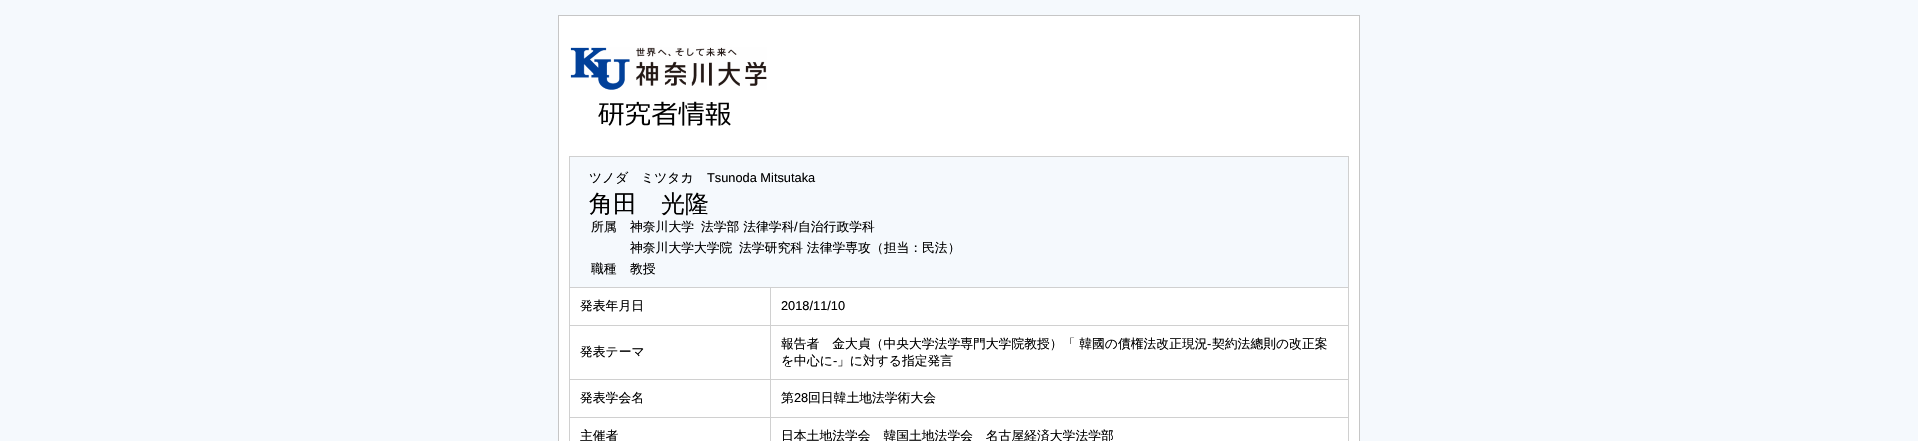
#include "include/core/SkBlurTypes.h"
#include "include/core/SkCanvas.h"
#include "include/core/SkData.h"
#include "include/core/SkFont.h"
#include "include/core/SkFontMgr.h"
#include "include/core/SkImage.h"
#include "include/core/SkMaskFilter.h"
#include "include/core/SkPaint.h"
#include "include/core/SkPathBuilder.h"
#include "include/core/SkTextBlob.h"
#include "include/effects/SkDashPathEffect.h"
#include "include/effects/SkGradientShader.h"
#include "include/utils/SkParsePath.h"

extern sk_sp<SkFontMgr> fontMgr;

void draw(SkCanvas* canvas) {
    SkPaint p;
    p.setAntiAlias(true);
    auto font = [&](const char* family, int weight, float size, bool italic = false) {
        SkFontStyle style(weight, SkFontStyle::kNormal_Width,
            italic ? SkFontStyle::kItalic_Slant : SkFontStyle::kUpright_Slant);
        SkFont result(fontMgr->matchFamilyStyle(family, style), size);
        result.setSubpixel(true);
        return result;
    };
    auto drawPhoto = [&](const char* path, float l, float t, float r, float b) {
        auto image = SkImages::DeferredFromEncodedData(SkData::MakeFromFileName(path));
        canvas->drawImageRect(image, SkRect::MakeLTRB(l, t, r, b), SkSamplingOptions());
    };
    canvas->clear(0xFFF5F9FD);
    p.setColor(0xFFFFFFFF);
    canvas->drawRect(SkRect::MakeLTRB(558.5f, 15.5f, 1359.5f, 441.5f), p);
    p.setStyle(SkPaint::kStroke_Style);
    p.setStrokeWidth(1);
    p.setColor(0xFFC6C6C6);
    canvas->drawRect(SkRect::MakeLTRB(558.5f, 15.5f, 1359.5f, 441.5f), p);
    drawPhoto("media/1.png", 570, 47, 767, 90);
    drawPhoto("media/2.png", 598, 101, 731, 126);
    p.setStyle(SkPaint::kFill_Style);
    p.setColor(0xFFD0D0D0);
    canvas->drawRect(SkRect::MakeLTRB(569, 156, 1349, 441), p);
    p.setColor(0xFFF5F9FD);
    canvas->drawRect(SkRect::MakeLTRB(570, 157, 1348, 287), p);
    auto font1 = font("WenQuanYi Zen Hei", 500, 12.8f);
    p.setColor(0xFF000000);
    canvas->drawString("ツノダ　ミツタカ", 589, 182, font1, p);
    auto font2 = font("Liberation Sans", 400, 12.8f);
    canvas->drawString("Tsunoda Mitsutaka", 707, 182, font2, p);
    auto font3 = font("WenQuanYi Zen Hei", 500, 24);
    canvas->drawString("角田　光隆", 589, 212, font3, p);
    {
        const struct { const char* s; float x, y; } items[] = {
            {"所属", 591, 231},
            {"神奈川大学", 630, 231},
            {"法学部 法律学科", 701, 231},
        };
        for (auto [s, x, y] : items) {
            canvas->drawString(s, x, y, font1, p);
        }
    }
    canvas->drawString("/", 794, 231, font2, p);
    {
        const struct { const char* s; float x, y; } items[] = {
            {"自治行政学科", 798, 231},
            {"神奈川大学大学院", 630, 252},
            {"法学研究科 法律学専攻（担当：民法）", 739, 252},
            {"職種", 591, 273},
            {"教授", 630, 273},
        };
        for (auto [s, x, y] : items) {
            canvas->drawString(s, x, y, font1, p);
        }
    }
    p.setColor(0xFFFFFFFF);
    canvas->drawRect(SkRect::MakeLTRB(570, 288, 770, 325), p);
    p.setColor(0xFF000000);
    canvas->drawString("発表年月日", 580, 310, font1, p);
    p.setColor(0xFFFFFFFF);
    canvas->drawRect(SkRect::MakeLTRB(771, 288, 1348, 325), p);
    p.setColor(0xFF000000);
    canvas->drawString("2018/11/10", 781, 310, font2, p);
    p.setColor(0xFFFFFFFF);
    canvas->drawRect(SkRect::MakeLTRB(570, 326, 770, 379), p);
    p.setColor(0xFF000000);
    canvas->drawString("発表テーマ", 580, 356, font1, p);
    p.setColor(0xFFFFFFFF);
    canvas->drawRect(SkRect::MakeLTRB(771, 326, 1348, 379), p);
    p.setColor(0xFF000000);
    canvas->drawString("報告者　金大貞（中央大学法学専門大学院教授）「 韓國の債権法改正現況", 781, 348, font1, p);
    canvas->drawString("‐", 1207, 348, font2, p);
    canvas->drawString("契約法總則の改正案", 1212, 348, font1, p);
    canvas->drawString("を中心に", 781, 365, font1, p);
    canvas->drawString("‐", 833, 365, font2, p);
    canvas->drawString("」に対する指定発言", 837, 365, font1, p);
    p.setColor(0xFFFFFFFF);
    canvas->drawRect(SkRect::MakeLTRB(570, 380, 770, 417), p);
    p.setColor(0xFF000000);
    canvas->drawString("発表学会名", 580, 402, font1, p);
    p.setColor(0xFFFFFFFF);
    canvas->drawRect(SkRect::MakeLTRB(771, 380, 1348, 417), p);
    p.setColor(0xFF000000);
    canvas->drawString("第", 781, 402, font1, p);
    canvas->drawString("28", 794, 402, font2, p);
    canvas->drawString("回日韓土地法学術大会", 808, 402, font1, p);
    p.setColor(0xFFFFFFFF);
    canvas->drawRect(SkRect::MakeLTRB(570, 418, 770, 441), p);
    p.setColor(0xFF000000);
    canvas->drawString("主催者", 580, 440, font1, p);
    p.setColor(0xFFFFFFFF);
    canvas->drawRect(SkRect::MakeLTRB(771, 418, 1348, 441), p);
    p.setColor(0xFF000000);
    canvas->drawString("日本土地法学会　韓国土地法学会　名古屋経済大学法学部", 781, 440, font1, p);
}
